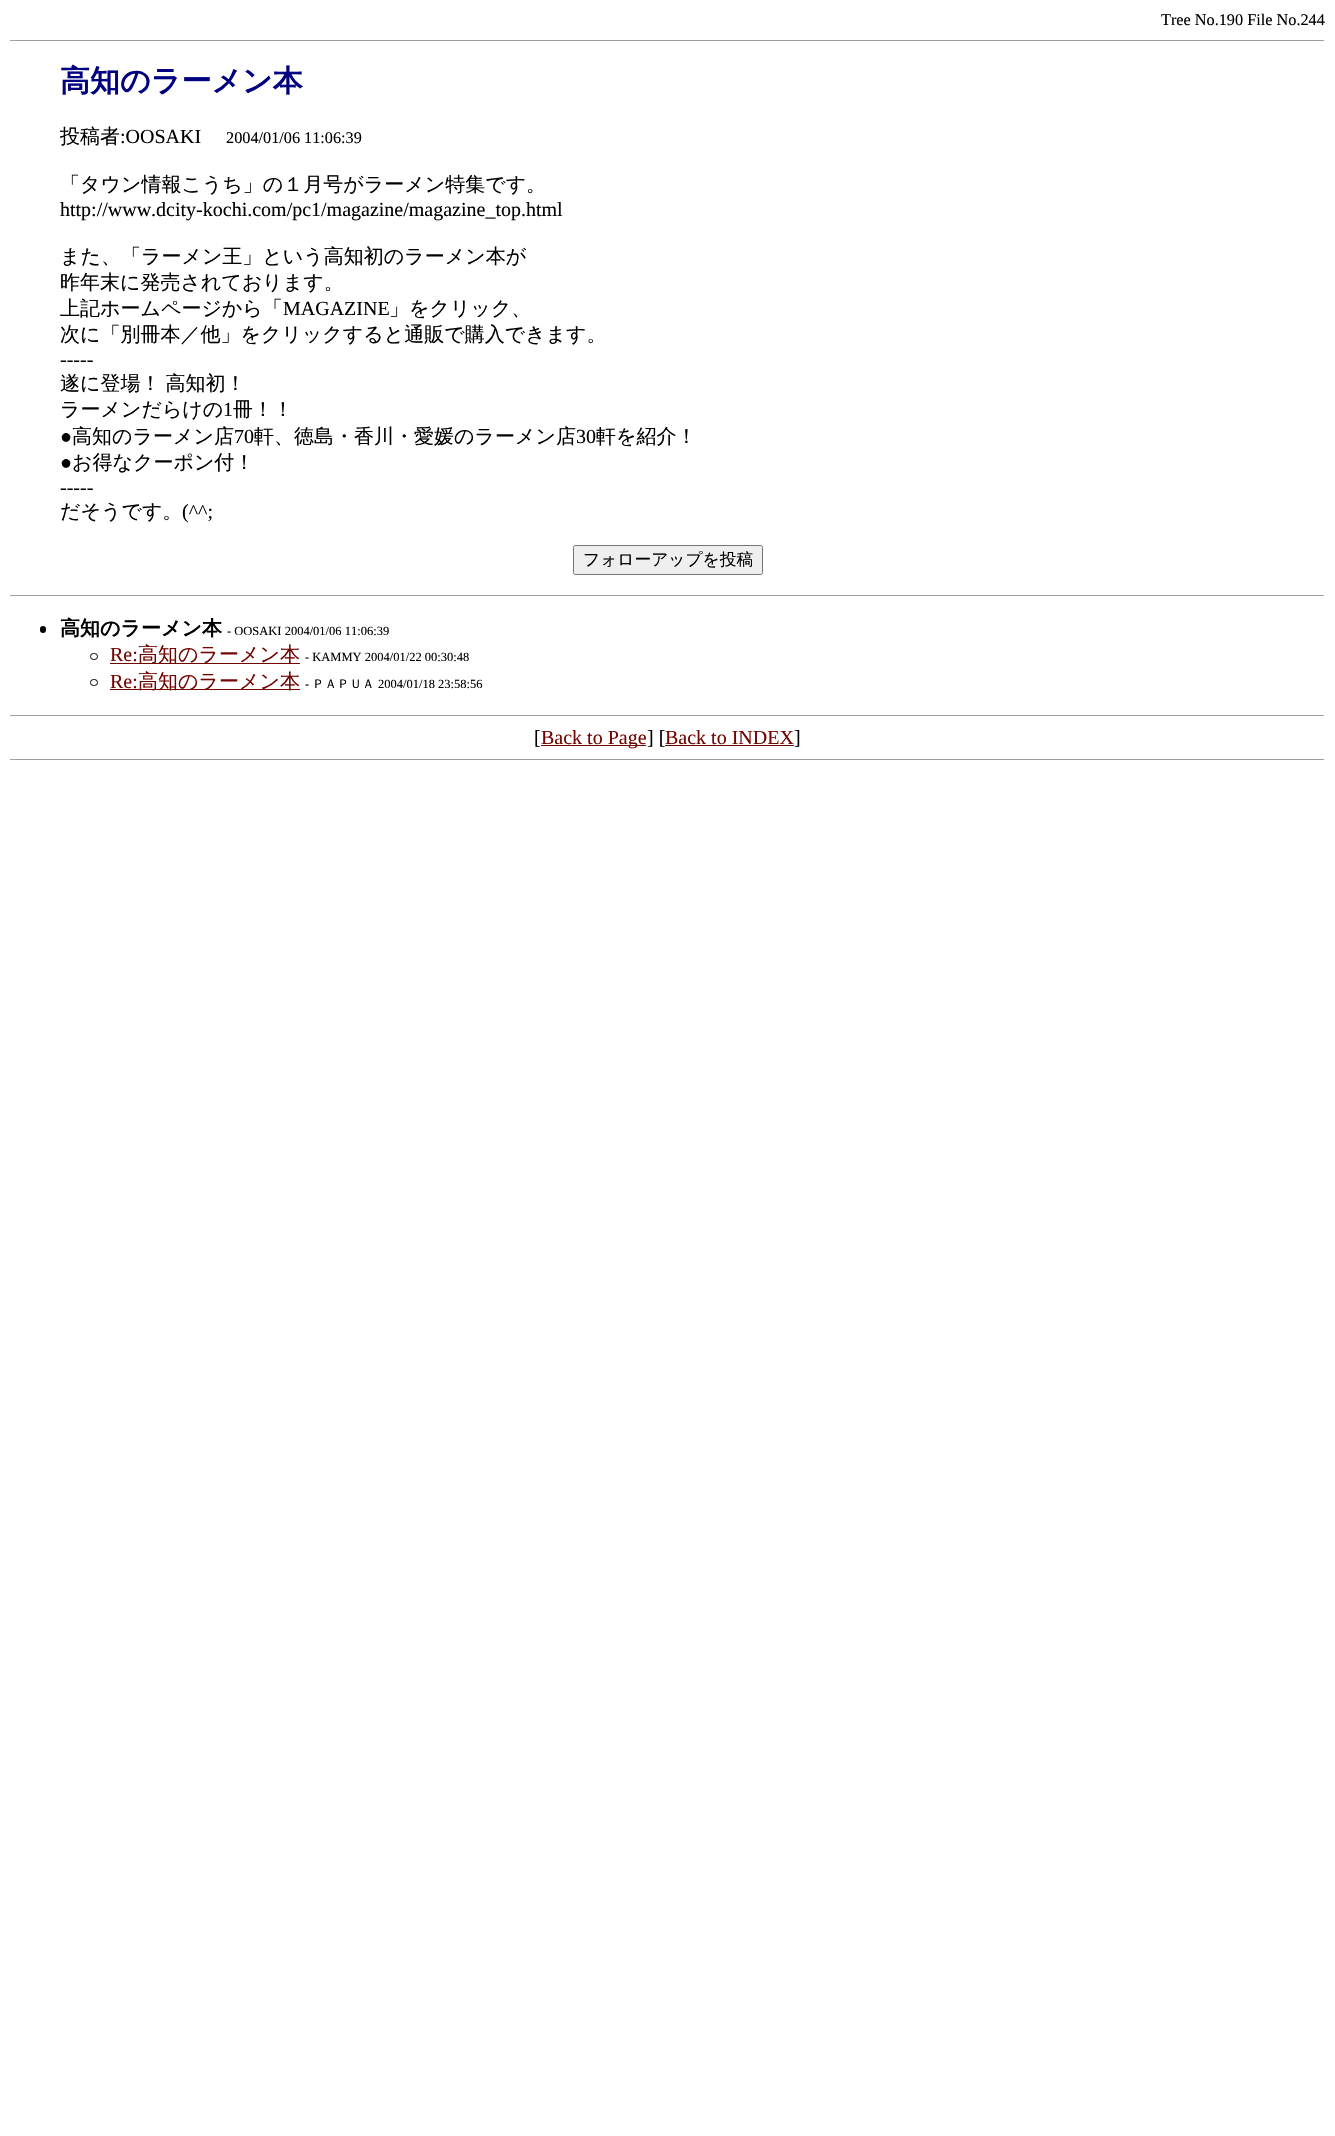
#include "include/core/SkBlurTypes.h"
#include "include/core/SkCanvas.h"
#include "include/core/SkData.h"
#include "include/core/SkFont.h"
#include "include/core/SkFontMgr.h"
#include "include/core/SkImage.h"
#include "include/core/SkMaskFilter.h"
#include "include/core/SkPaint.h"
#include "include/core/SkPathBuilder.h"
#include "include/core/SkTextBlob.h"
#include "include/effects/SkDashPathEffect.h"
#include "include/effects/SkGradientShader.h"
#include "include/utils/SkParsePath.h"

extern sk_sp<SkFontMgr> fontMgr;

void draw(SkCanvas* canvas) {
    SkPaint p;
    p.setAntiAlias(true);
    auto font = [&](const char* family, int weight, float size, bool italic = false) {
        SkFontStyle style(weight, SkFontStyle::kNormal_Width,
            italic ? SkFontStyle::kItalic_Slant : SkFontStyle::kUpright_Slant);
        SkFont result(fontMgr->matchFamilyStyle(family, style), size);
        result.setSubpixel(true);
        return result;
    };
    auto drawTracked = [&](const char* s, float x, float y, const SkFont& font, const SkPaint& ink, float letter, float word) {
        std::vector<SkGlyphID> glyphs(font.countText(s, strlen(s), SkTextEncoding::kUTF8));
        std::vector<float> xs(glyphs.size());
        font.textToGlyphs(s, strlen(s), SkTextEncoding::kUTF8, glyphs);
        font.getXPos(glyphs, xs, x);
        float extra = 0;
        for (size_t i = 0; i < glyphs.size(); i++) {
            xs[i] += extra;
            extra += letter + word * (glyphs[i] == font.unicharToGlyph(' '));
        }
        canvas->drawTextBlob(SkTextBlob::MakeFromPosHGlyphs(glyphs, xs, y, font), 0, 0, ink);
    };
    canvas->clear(0xFFFFFFFF);
    auto font1 = font("Liberation Serif", 400, 16.25f);
    p.setColor(0xFF000000);
    canvas->drawString("Tree No.190 File No.244", 1161, 25, font1, p);
    p.setColor(0xFF9F9F9F);
    canvas->drawRect(SkRect::MakeLTRB(10, 40, 1325, 41), p);
    p.setColor(0xFFEEEEEE);
    canvas->drawRect(SkRect::MakeLTRB(1324, 40, 1325, 41), p);
    auto font2 = font("WenQuanYi Zen Hei", 700, 30);
    p.setColor(0xFF000080);
    canvas->drawString("高知のラーメン本", 60, 91, font2, p);
    auto font3 = font("WenQuanYi Zen Hei", 500, 20);
    p.setColor(0xFF000000);
    canvas->drawString("投稿者", 60, 143, font3, p);
    auto font4 = font("Liberation Serif", 400, 20);
    canvas->drawString(":OOSAKI", 120, 143, font4, p);
    canvas->drawString("2004/01/06 11:06:39", 226, 143, font1, p);
    canvas->drawString("「タウン情報こうち」の１月号がラーメン特集です。", 60, 191, font3, p);
    canvas->drawString("http://www.dcity-kochi.com/pc1/magazine/magazine_top.html", 60, 216, font4, p);
    {
        const struct { const char* s; float x, y; } items[] = {
            {"また、「ラーメン王」という高知初のラーメン本が", 60, 263},
            {"昨年末に発売されております。", 60, 289},
            {"上記ホームページから「", 60, 315},
        };
        for (auto [s, x, y] : items) {
            canvas->drawString(s, x, y, font3, p);
        }
    }
    canvas->drawString("MAGAZINE", 283, 315, font4, p);
    canvas->drawString("」をクリック、", 389, 315, font3, p);
    canvas->drawString("次に「別冊本／他」をクリックすると通販で購入できます。", 60, 341, font3, p);
    canvas->drawString("-----", 60, 366, font4, p);
    drawTracked("遂に登場！ 高知初！", 60, 390, font3, p, 0, -1);
    canvas->drawString("ラーメンだらけの", 60, 416, font3, p);
    canvas->drawString("1", 223, 416, font4, p);
    canvas->drawString("冊！！", 233, 416, font3, p);
    canvas->drawString("●", 60, 443, font4, p);
    canvas->drawString("高知のラーメン店", 72, 443, font3, p);
    canvas->drawString("70", 234, 443, font4, p);
    canvas->drawString("軒、徳島・香川・愛媛のラーメン店", 254, 443, font3, p);
    canvas->drawString("30", 576, 443, font4, p);
    canvas->drawString("軒を紹介！", 596, 443, font3, p);
    canvas->drawString("●", 60, 469, font4, p);
    canvas->drawString("お得なクーポン付！", 72, 469, font3, p);
    canvas->drawString("-----", 60, 494, font4, p);
    canvas->drawString("だそうです。", 60, 518, font3, p);
    canvas->drawString("(^^;", 182, 518, font4, p);
    p.setColor(0xFFEFEFEF);
    canvas->drawRoundRect(SkRect::MakeLTRB(573.5f, 545.5f, 762.5f, 574.5f), 2, 2, p);
    p.setStyle(SkPaint::kStroke_Style);
    p.setStrokeWidth(1);
    p.setColor(0xFF767676);
    canvas->drawRoundRect(SkRect::MakeLTRB(573.5f, 545.5f, 762.5f, 574.5f), 2, 2, p);
    auto font5 = font("WenQuanYi Zen Hei", 500, 16.75f);
    p.setStyle(SkPaint::kFill_Style);
    p.setColor(0xFF000000);
    canvas->drawString("フォローアップを投稿", 583, 565, font5, p);
    p.setColor(0xFF9F9F9F);
    canvas->drawRect(SkRect::MakeLTRB(10, 595, 1325, 596), p);
    p.setColor(0xFFEEEEEE);
    canvas->drawRect(SkRect::MakeLTRB(1324, 595, 1325, 596), p);
    p.setColor(0xFF000000);
    canvas->drawRoundRect(SkRect::MakeLTRB(40, 626, 46, 633), 3, 3, p);
    auto font6 = font("WenQuanYi Zen Hei", 700, 20);
    canvas->drawString("高知のラーメン本", 60, 635, font6, p);
    auto font7 = font("Liberation Serif", 400, 12.5f);
    canvas->drawString("- OOSAKI 2004/01/06 11:06:39", 227, 635, font7, p);
    p.setStyle(SkPaint::kStroke_Style);
    canvas->drawRoundRect(SkRect::MakeLTRB(90.5f, 653.5f, 97.5f, 659.5f), 3, 3, p);
    p.setStyle(SkPaint::kFill_Style);
    p.setColor(0xFF710502);
    canvas->drawString("Re:", 110, 661, font4, p);
    canvas->drawRect(SkRect::MakeLTRB(110, 663, 300, 664), p);
    canvas->drawString("高知のラーメン本", 138, 661, font3, p);
    p.setColor(0xFF000000);
    canvas->drawString("- KAMMY 2004/01/22 00:30:48", 305, 661, font7, p);
    p.setStyle(SkPaint::kStroke_Style);
    canvas->drawRoundRect(SkRect::MakeLTRB(90.5f, 679.5f, 97.5f, 685.5f), 3, 3, p);
    p.setStyle(SkPaint::kFill_Style);
    p.setColor(0xFF710502);
    canvas->drawString("Re:", 110, 688, font4, p);
    canvas->drawRect(SkRect::MakeLTRB(110, 689, 300, 690), p);
    canvas->drawString("高知のラーメン本", 138, 688, font3, p);
    p.setColor(0xFF000000);
    canvas->drawString("-", 305, 688, font7, p);
    auto font8 = font("WenQuanYi Zen Hei", 500, 12.5f);
    canvas->drawString("ＰＡＰＵＡ", 312, 688, font8, p);
    canvas->drawString("2004/01/18 23:58:56", 378, 688, font7, p);
    p.setColor(0xFF9F9F9F);
    canvas->drawRect(SkRect::MakeLTRB(10, 715, 1325, 716), p);
    p.setColor(0xFFEEEEEE);
    canvas->drawRect(SkRect::MakeLTRB(1324, 715, 1325, 716), p);
    p.setColor(0xFF000000);
    canvas->drawString("[", 534, 744, font4, p);
    p.setColor(0xFF710502);
    canvas->drawRect(SkRect::MakeLTRB(541, 745, 646, 746), p);
    canvas->drawString("Back to Page", 541, 744, font4, p);
    p.setColor(0xFF000000);
    canvas->drawString("] [", 647, 744, font4, p);
    p.setColor(0xFF710502);
    canvas->drawString("Back to INDEX", 665, 744, font4, p);
    canvas->drawRect(SkRect::MakeLTRB(665, 745, 794, 746), p);
    p.setColor(0xFF000000);
    canvas->drawString("]", 794, 744, font4, p);
    p.setColor(0xFF9F9F9F);
    canvas->drawRect(SkRect::MakeLTRB(10, 759, 1325, 760), p);
    p.setColor(0xFFEEEEEE);
    canvas->drawRect(SkRect::MakeLTRB(1324, 759, 1325, 760), p);
}
